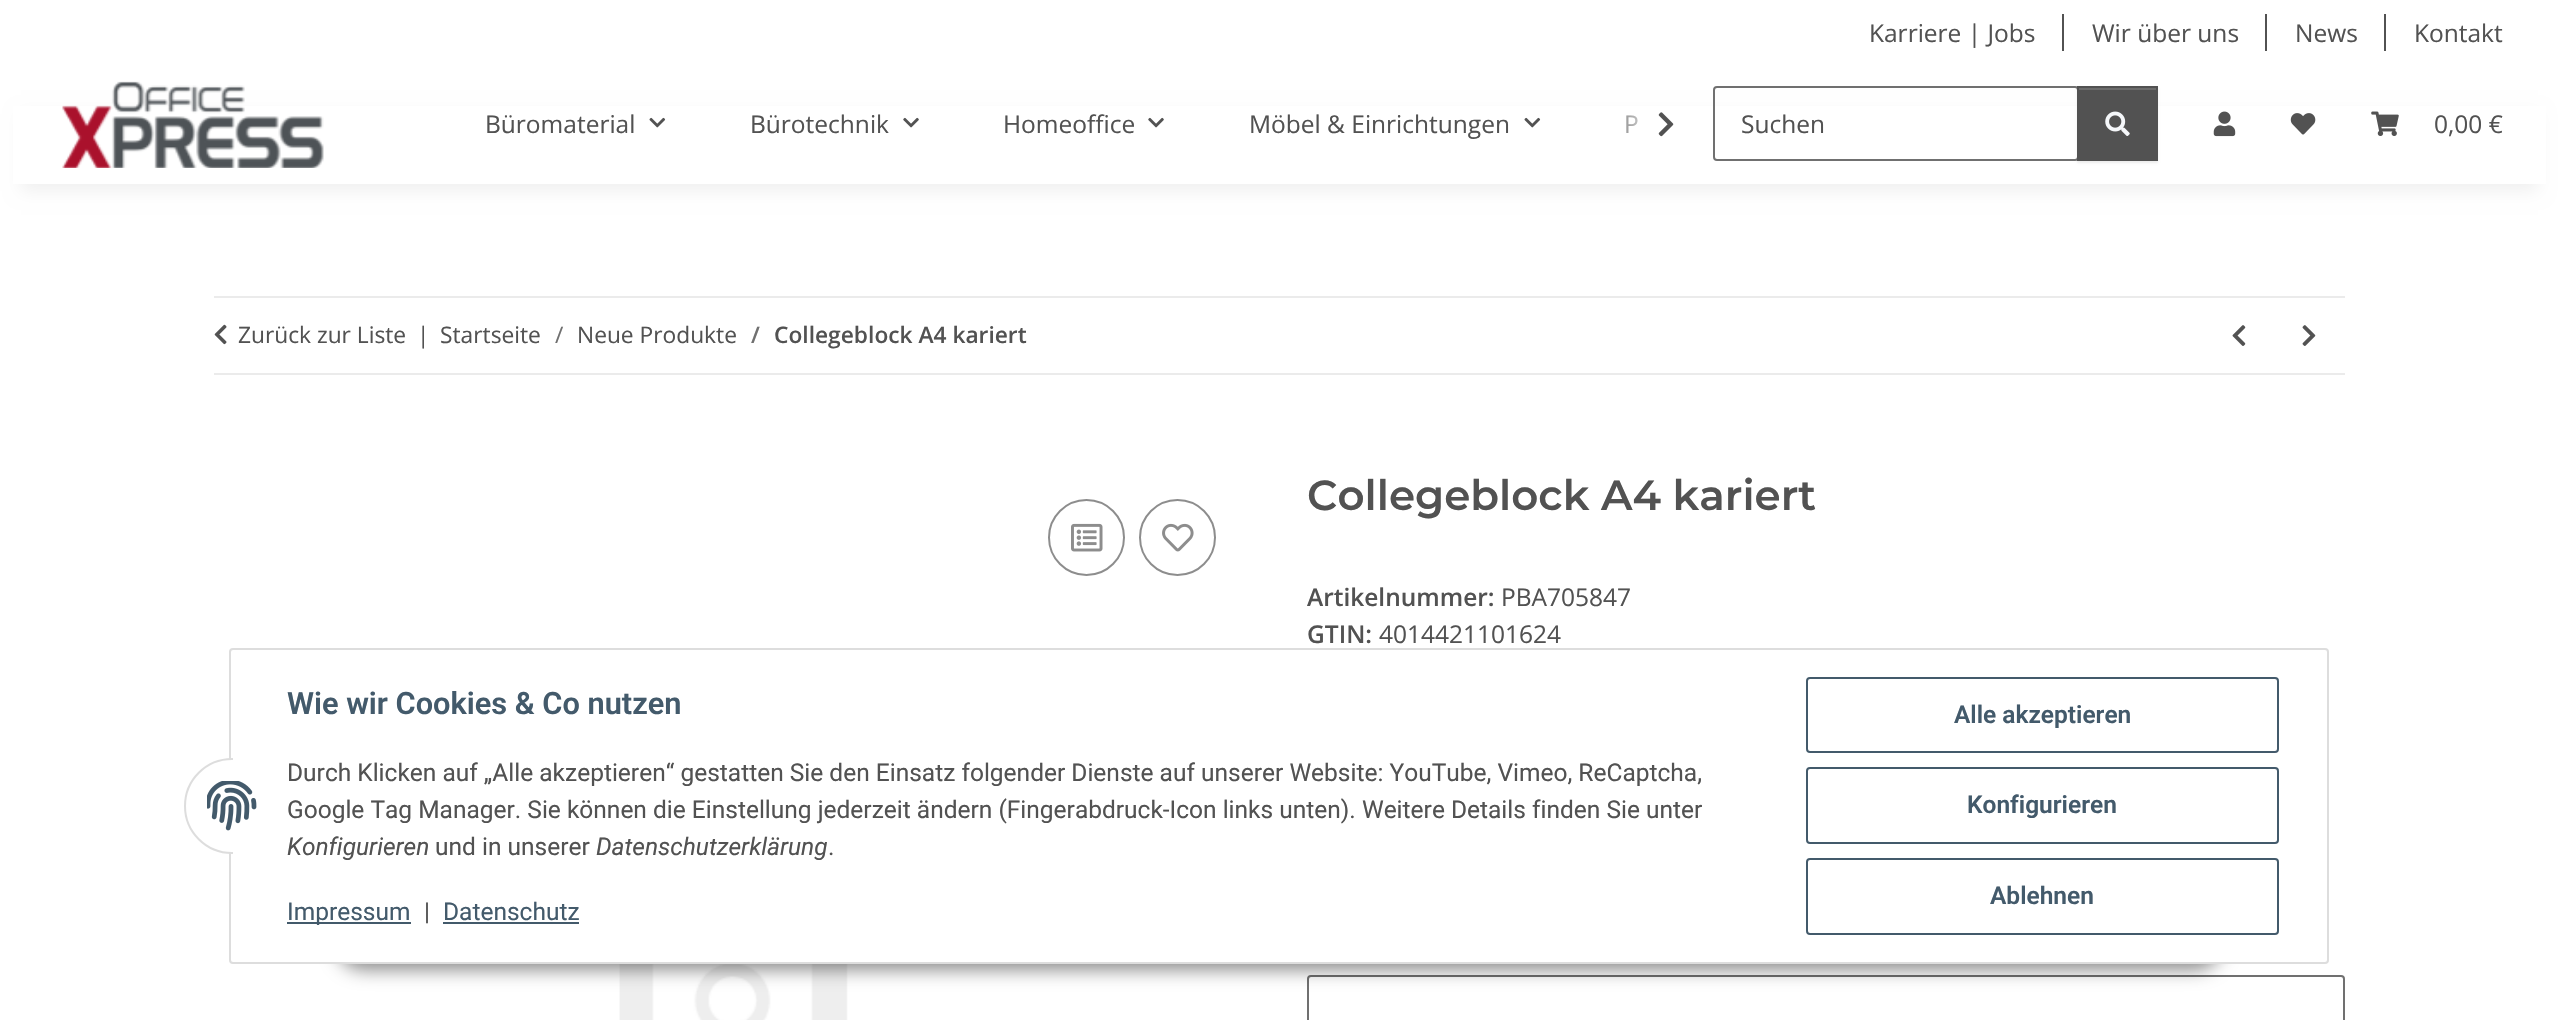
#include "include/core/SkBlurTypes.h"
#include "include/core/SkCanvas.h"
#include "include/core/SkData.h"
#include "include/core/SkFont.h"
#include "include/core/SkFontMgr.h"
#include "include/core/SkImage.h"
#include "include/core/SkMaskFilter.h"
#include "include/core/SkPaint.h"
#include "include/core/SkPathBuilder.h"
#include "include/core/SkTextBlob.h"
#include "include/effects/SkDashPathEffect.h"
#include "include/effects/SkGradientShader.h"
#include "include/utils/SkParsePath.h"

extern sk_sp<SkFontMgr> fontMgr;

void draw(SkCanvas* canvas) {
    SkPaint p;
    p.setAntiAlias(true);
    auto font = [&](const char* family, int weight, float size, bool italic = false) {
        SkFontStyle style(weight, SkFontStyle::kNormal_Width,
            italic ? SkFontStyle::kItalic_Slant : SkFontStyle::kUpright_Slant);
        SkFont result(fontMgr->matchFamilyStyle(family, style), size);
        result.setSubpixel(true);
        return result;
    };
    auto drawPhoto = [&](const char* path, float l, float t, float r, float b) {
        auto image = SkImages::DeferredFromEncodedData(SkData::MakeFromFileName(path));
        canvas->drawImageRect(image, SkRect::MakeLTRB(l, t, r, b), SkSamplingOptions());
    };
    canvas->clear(0xFFFFFFFF);
    auto font1 = font("Open Sans", 400, 24.5f);
    p.setColor(0xFF525252);
    canvas->drawString("Karriere | Jobs", 1869, 42, font1, p);
    canvas->drawRect(SkRect::MakeLTRB(2062, 14, 2064, 51), p);
    canvas->drawString("Wir über uns", 2092, 42, font1, p);
    canvas->drawRect(SkRect::MakeLTRB(2265, 14, 2267, 51), p);
    canvas->drawString("News", 2295, 42, font1, p);
    canvas->drawRect(SkRect::MakeLTRB(2384, 14, 2386, 51), p);
    canvas->drawString("Kontakt", 2414, 42, font1, p);
    p.setColor(0x0F000000);
    p.setMaskFilter(SkMaskFilter::MakeBlur(kNormal_SkBlurStyle, 8));
    canvas->drawRect(SkRect::MakeLTRB(21, 114, 2538, 191), p);
    p.setMaskFilter(nullptr);
    p.setColor(0xFFFFFFFF);
    canvas->drawRect(SkRect::MakeLTRB(13, 106, 2546, 184), p);
    drawPhoto("media/1.png", 62, 81, 324, 168);
    p.setColor(0xFF525252);
    canvas->drawString("Büromaterial", 485, 133, font1, p);
    drawPhoto("media/2.png", 649, 117, 666, 128);
    canvas->drawString("Bürotechnik", 750, 133, font1, p);
    drawPhoto("media/3.png", 903, 117, 919, 128);
    canvas->drawString("Homeoffice", 1003, 133, font1, p);
    drawPhoto("media/3.png", 1148, 117, 1164, 128);
    canvas->drawString("Möbel & Einrichtungen", 1249, 133, font1, p);
    drawPhoto("media/2.png", 1524, 117, 1541, 128);
    canvas->drawString("P", 1624, 133, font1, p);
    {
        const SkColor colors[] = {0x03FFFFFF, 0xFFFFFFFF};
        const float stops[] = {0, 0.7f};
        const SkPoint ends[] = {{1601, 124}, {1685, 124}};
        p.setShader(SkGradientShader::MakeLinear(ends, colors, stops, 2, SkTileMode::kClamp));
        p.setAlpha(255);
    }
    canvas->drawRect(SkRect::MakeLTRB(1626, 115, 1638, 133), p);
    drawPhoto("media/4.png", 1658, 112, 1674, 137);
    p.setStyle(SkPaint::kStroke_Style);
    p.setStrokeWidth(2);
    p.setShader(nullptr);
    p.setColor(0xFF707070);
    canvas->drawRoundRect(SkRect::MakeLTRB(1714, 87, 2078, 160), 3, 3, p);
    p.setStyle(SkPaint::kFill_Style);
    p.setColor(0xFF525252);
    canvas->drawString("Suchen", 1741, 133, font1, p);
    p.setColor(0x12000000);
    p.setMaskFilter(SkMaskFilter::MakeBlur(kNormal_SkBlurStyle, 1));
    canvas->drawRect(SkRect::MakeLTRB(2077, 88, 2158, 163), p);
    p.setMaskFilter(nullptr);
    p.setColor(0xFF525252);
    canvas->drawRect(SkRect::MakeLTRB(2077, 86, 2158, 161), p);
    p.setColor(0xFF6C6C6C);
    canvas->drawRect(SkRect::MakeLTRB(2079, 88, 2156, 90), p);
    drawPhoto("media/5.png", 2105, 111, 2130, 136);
    drawPhoto("media/6.png", 2213, 111, 2236, 137);
    drawPhoto("media/7.png", 2290, 113, 2316, 135);
    drawPhoto("media/8.png", 2371, 111, 2399, 136);
    p.setColor(0xFF525252);
    canvas->drawString("0,00 €", 2434, 133, font1, p);
    p.setColor(0xFFEBEBEB);
    canvas->drawRect(SkRect::MakeLTRB(214, 296, 2345, 298), p);
    canvas->drawRect(SkRect::MakeLTRB(214, 373, 2345, 375), p);
    drawPhoto("media/9.png", 214, 324, 227, 345);
    auto font2 = font("Open Sans", 400, 22.75f);
    p.setColor(0xFF525252);
    {
        const struct { const char* s; float x, y; } items[] = {
            {"Zurück zur Liste", 238, 343},
            {"|", 417, 343},
            {"Startseite", 440, 343},
        };
        for (auto [s, x, y] : items) {
            canvas->drawString(s, x, y, font2, p);
        }
    }
    p.setColor(0xFF707070);
    canvas->drawString("/", 555, 343, font2, p);
    p.setColor(0xFF525252);
    canvas->drawString("Neue Produkte", 577, 343, font2, p);
    auto font3 = font("Open Sans", 600, 22.75f);
    p.setColor(0xFF707070);
    canvas->drawString("/", 751, 343, font3, p);
    p.setColor(0xFF525252);
    canvas->drawString("Collegeblock A4 kariert", 774, 343, font3, p);
    drawPhoto("media/10.png", 2232, 325, 2246, 346);
    drawPhoto("media/11.png", 2302, 325, 2316, 346);
    p.setStyle(SkPaint::kStroke_Style);
    p.setColor(0xFF8D8D8D);
    canvas->drawCircle(1086.5f, 537.5f, 37.5f, p);
    drawPhoto("media/12.png", 1071, 523, 1103, 552);
    canvas->drawCircle(1177.5f, 537.5f, 37.5f, p);
    drawPhoto("media/13.png", 1162, 523, 1194, 552);
    drawPhoto("media/14.png", 619, 964, 848, 1020);
    auto font4 = font("Montserrat", 600, 42);
    p.setStyle(SkPaint::kFill_Style);
    p.setColor(0xFF525252);
    canvas->drawString("Collegeblock A4 kariert", 1307, 510, font4, p);
    auto font5 = font("Open Sans", 600, 24.5f);
    canvas->drawString("Artikelnummer:", 1307, 606, font5, p);
    canvas->drawString("PBA705847", 1501, 606, font1, p);
    canvas->drawString("GTIN:", 1307, 643, font5, p);
    canvas->drawString("4014421101624", 1379, 643, font1, p);
    p.setStyle(SkPaint::kStroke_Style);
    p.setColor(0xFF707070);
    canvas->drawRoundRect(SkRect::MakeLTRB(1308, 976, 2344, 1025), 3, 3, p);
    p.setStyle(SkPaint::kFill_Style);
    p.setColor(0x73000000);
    p.setMaskFilter(SkMaskFilter::MakeBlur(kNormal_SkBlurStyle, 9));
    canvas->drawRoundRect(SkRect::MakeLTRB(336, 914, 2223, 970), 28, 28, p);
    p.setMaskFilter(nullptr);
    p.setColor(0xFFFFFFFF);
    canvas->drawRoundRect(SkRect::MakeLTRB(230, 649, 2328, 963), 3, 3, p);
    p.setStyle(SkPaint::kStroke_Style);
    p.setColor(0xFFDDDDDD);
    canvas->drawRoundRect(SkRect::MakeLTRB(230, 649, 2328, 963), 3, 3, p);
    p.setStyle(SkPaint::kFill_Style);
    p.setColor(0xFFFFFFFF);
    canvas->drawCircle(232, 806, 47, p);
    p.setStyle(SkPaint::kStroke_Style);
    p.setColor(0xFFDDDDDD);
    canvas->drawCircle(232, 806, 47, p);
    p.setStyle(SkPaint::kFill_Style);
    p.setColor(0xFFFFFFFF);
    canvas->drawRect(SkRect::MakeLTRB(233, 758, 280, 854), p);
    drawPhoto("media/15.png", 207, 781, 257, 831);
    auto font6 = font("Roboto", 600, 30.75f);
    p.setColor(0xFF435A6B);
    canvas->drawString("Wie wir Cookies & Co nutzen", 287, 714, font6, p);
    auto font7 = font("Roboto", 400, 24.5f);
    p.setColor(0xFF525252);
    canvas->drawString("Durch Klicken auf „Alle akzeptieren“ gestatten Sie den Einsatz folgender Dienste auf unserer Website: YouTube, Vimeo, ReCaptcha,", 287, 781, font7, p);
    canvas->drawString("Google Tag Manager. Sie können die Einstellung jederzeit ändern (Fingerabdruck-Icon links unten). Weitere Details finden Sie unter", 287, 818, font7, p);
    auto font8 = font("Roboto", 400, 24.5f, true);
    canvas->drawString("Konfigurieren", 287, 855, font8, p);
    canvas->drawString("und in unserer", 435, 855, font7, p);
    canvas->drawString("Datenschutzerklärung", 596, 855, font8, p);
    canvas->drawString(".", 828, 855, font7, p);
    p.setColor(0xFF435A6B);
    canvas->drawRect(SkRect::MakeLTRB(287, 922, 411, 924), p);
    canvas->drawString("Impressum", 287, 920, font7, p);
    p.setColor(0xFF525252);
    canvas->drawString("|", 424, 920, font7, p);
    p.setColor(0xFF435A6B);
    canvas->drawString("Datenschutz", 443, 920, font7, p);
    canvas->drawRect(SkRect::MakeLTRB(443, 922, 579, 924), p);
    p.setStyle(SkPaint::kStroke_Style);
    canvas->drawRoundRect(SkRect::MakeLTRB(1807, 678, 2278, 752), 3, 3, p);
    auto font9 = font("Roboto", 600, 24.5f);
    p.setStyle(SkPaint::kFill_Style);
    canvas->drawString("Alle akzeptieren", 1954, 723, font9, p);
    p.setStyle(SkPaint::kStroke_Style);
    canvas->drawRoundRect(SkRect::MakeLTRB(1807, 768, 2278, 843), 3, 3, p);
    p.setStyle(SkPaint::kFill_Style);
    canvas->drawString("Konfigurieren", 1967, 813, font9, p);
    p.setStyle(SkPaint::kStroke_Style);
    canvas->drawRoundRect(SkRect::MakeLTRB(1807, 859, 2278, 934), 3, 3, p);
    p.setStyle(SkPaint::kFill_Style);
    canvas->drawString("Ablehnen", 1990, 904, font9, p);
}
